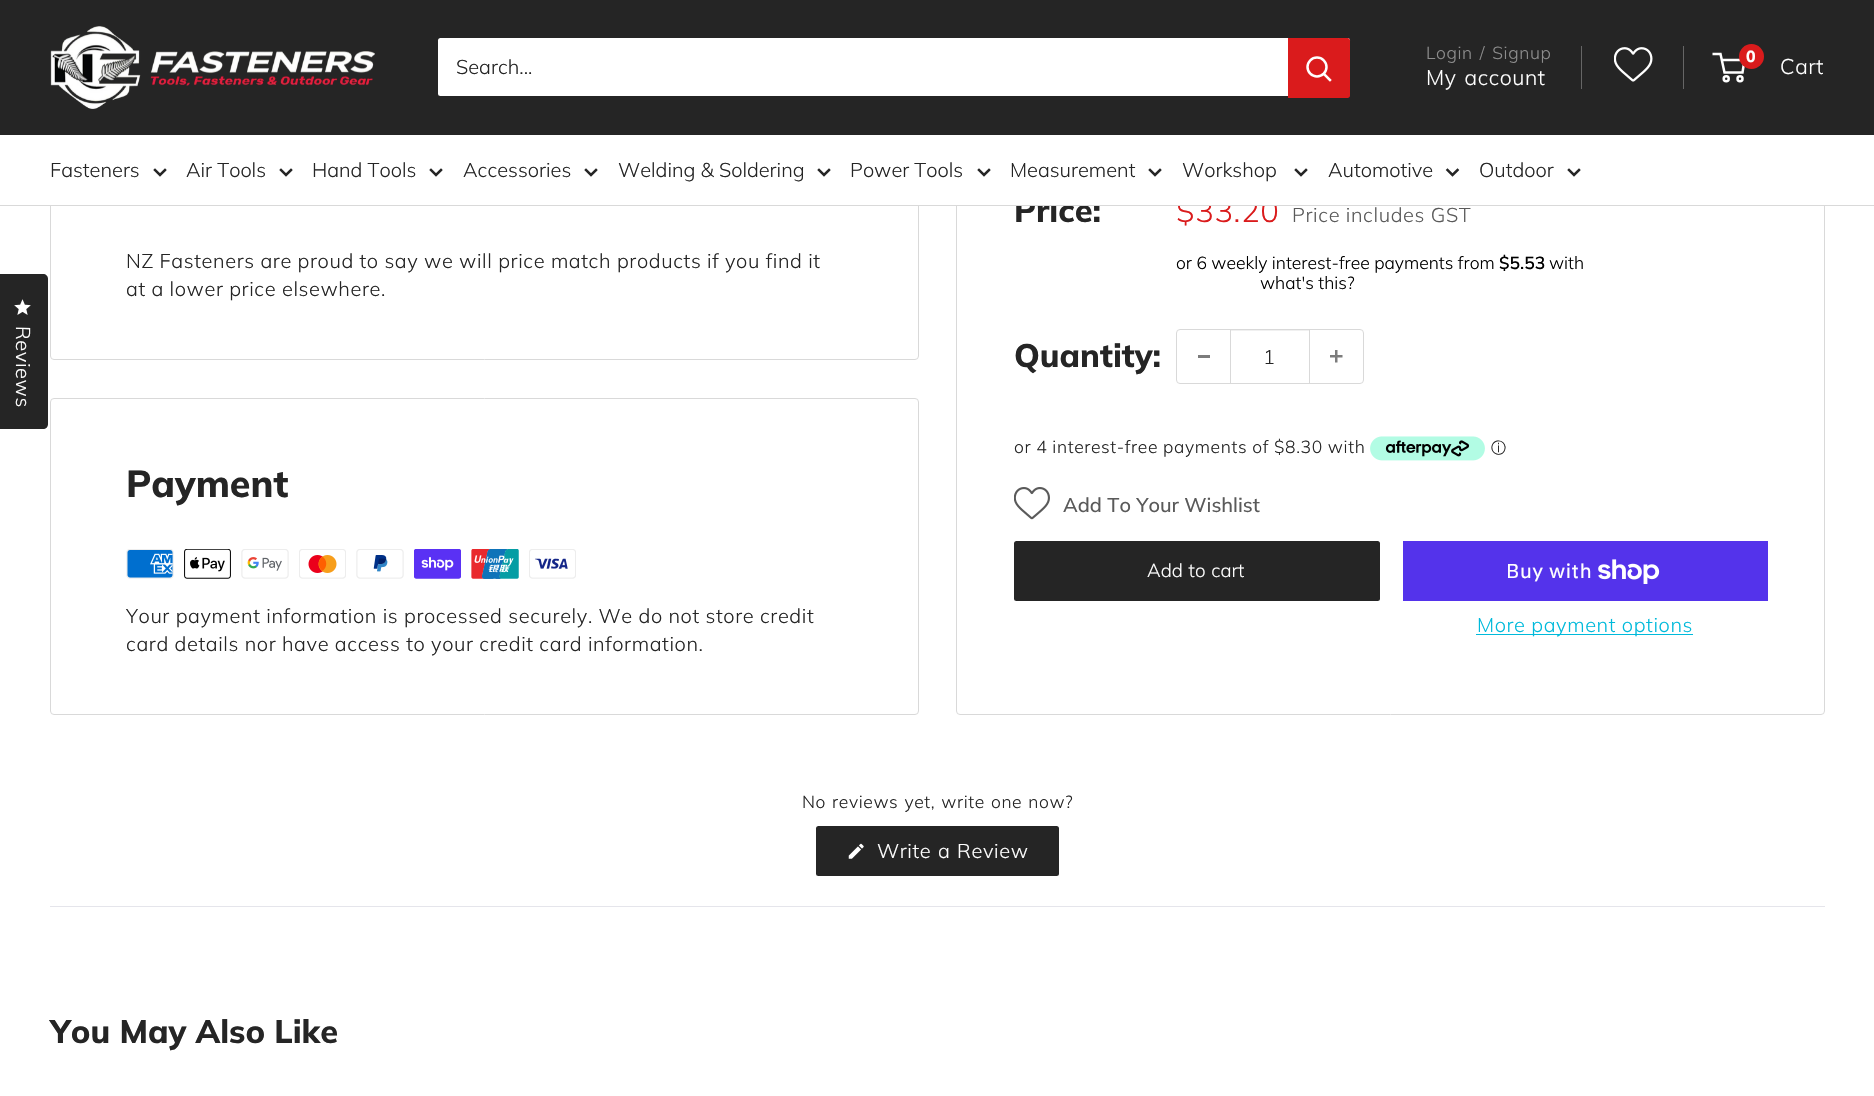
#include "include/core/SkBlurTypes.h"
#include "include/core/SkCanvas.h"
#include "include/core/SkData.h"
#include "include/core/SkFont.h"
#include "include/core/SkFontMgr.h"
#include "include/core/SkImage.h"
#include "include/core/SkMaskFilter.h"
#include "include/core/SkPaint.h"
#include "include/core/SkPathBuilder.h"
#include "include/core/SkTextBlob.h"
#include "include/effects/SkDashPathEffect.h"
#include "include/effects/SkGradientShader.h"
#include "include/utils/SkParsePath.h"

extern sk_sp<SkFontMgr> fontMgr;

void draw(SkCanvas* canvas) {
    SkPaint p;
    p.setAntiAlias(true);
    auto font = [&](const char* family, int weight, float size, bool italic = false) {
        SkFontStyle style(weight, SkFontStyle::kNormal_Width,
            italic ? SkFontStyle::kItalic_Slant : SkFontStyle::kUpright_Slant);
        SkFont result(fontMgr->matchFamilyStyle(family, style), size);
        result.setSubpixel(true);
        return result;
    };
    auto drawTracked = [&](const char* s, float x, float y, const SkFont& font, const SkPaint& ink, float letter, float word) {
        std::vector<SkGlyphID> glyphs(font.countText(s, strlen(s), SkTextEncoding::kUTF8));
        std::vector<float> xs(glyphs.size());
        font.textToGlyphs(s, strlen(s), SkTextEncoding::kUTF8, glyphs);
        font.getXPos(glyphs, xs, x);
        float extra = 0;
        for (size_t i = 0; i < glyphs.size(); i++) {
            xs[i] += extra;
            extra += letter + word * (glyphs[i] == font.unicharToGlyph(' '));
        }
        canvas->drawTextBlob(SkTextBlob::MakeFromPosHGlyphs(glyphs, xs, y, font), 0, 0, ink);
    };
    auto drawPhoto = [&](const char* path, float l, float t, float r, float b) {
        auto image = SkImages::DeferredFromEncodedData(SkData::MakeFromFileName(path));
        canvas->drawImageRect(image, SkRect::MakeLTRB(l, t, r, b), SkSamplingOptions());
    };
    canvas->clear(0xFFFFFFFF);
    p.setStyle(SkPaint::kStroke_Style);
    p.setStrokeWidth(1);
    p.setColor(0xFFD9D9D9);
    canvas->drawRoundRect(SkRect::MakeLTRB(50.5f, 105.5f, 918.5f, 359.5f), 3.5f, 3.5f, p);
    canvas->drawRoundRect(SkRect::MakeLTRB(956.5f, -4.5f, 1824.5f, 714.5f), 3.5f, 3.5f, p);
    p.setStyle(SkPaint::kFill_Style);
    p.setColor(0xFF252525);
    canvas->drawRect(SkRect::MakeLTRB(0, 0, 1874, 135), p);
    drawPhoto("media/1.png", 50, 26, 375, 109);
    p.setColor(0xFFFFFFFF);
    canvas->drawRoundRect(SkRect::MakeLTRB(438, 38, 1350, 96), 2.5f, 2.5f, p);
    auto font1 = font("Mulish", 300, 20);
    p.setColor(0xFF252525);
    canvas->drawString("Search...", 456, 74, font1, p);
    p.setColor(0xFFDA1B1C);
    canvas->drawPath(SkPathBuilder().moveTo(1288, 38).lineTo(1347.5f, 38).cubicTo(1349, 38, 1350, 39, 1350, 40.5f).lineTo(1350, 95.5f).cubicTo(1350, 97, 1349, 98, 1347.5f, 98).lineTo(1288, 98).close().detach(), p);
    p.setStyle(SkPaint::kStroke_Style);
    p.setStrokeWidth(2.5f);
    p.setStrokeCap(SkPaint::kSquare_Cap);
    p.setColor(0xFFFFFFFF);
    canvas->drawPath(SkPathBuilder().moveTo(1330, 80).lineTo(1324, 74).detach(), p);
    p.setStrokeCap(SkPaint::kButt_Cap);
    canvas->drawCircle(1317, 67, 9.5f, p);
    auto font2 = font("Mulish", 300, 17.5f);
    p.setStyle(SkPaint::kFill_Style);
    p.setColor(0xFF8D8D8D);
    drawTracked("Login / Signup", 1426, 59, font2, p, 0.6f, 2);
    p.setColor(0xFF666666);
    canvas->drawRect(SkRect::MakeLTRB(1581, 46, 1582, 89), p);
    auto font3 = font("Mulish", 300, 21.25f);
    p.setColor(0xFFFFFFFF);
    drawTracked("My account", 1426, 85, font3, p, 0.6f, 2);
    drawPhoto("media/2.png", 1614, 47, 1653, 82);
    p.setColor(0xFF666666);
    canvas->drawRect(SkRect::MakeLTRB(1683, 46, 1684, 89), p);
    p.setStyle(SkPaint::kStroke_Style);
    p.setColor(0xFFFFFFFF);
    canvas->drawCircle(1726.2f, 78.8f, 2.5f, p);
    canvas->drawCircle(1740, 78.8f, 2.5f, p);
    canvas->drawPath(SkPathBuilder().moveTo(1721.5f, 60).lineTo(1744.5f, 60).lineTo(1742.5f, 72.5f).lineTo(1724.5f, 72.5f).lineTo(1720.5f, 54).lineTo(1712.5f, 54).detach(), p);
    p.setStyle(SkPaint::kFill_Style);
    p.setColor(0xFFDA1B1C);
    canvas->drawCircle(1751.5f, 56.5f, 12.5f, p);
    auto font4 = font("Mulish", 800, 16);
    p.setColor(0xFFFFFFFF);
    drawTracked("0", 1746, 62, font4, p, 1, 0);
    drawTracked("Cart", 1780, 74, font3, p, 0.6f, 0);
    auto font5 = font("Mulish", 800, 32.5f);
    p.setColor(0xFF252525);
    canvas->drawString("Price:", 1014, 222, font5, p);
    auto font6 = font("Mulish", 300, 31);
    p.setColor(0xFFDA1B1C);
    drawTracked("$33.20", 1176, 222, font6, p, 0.6f, 0);
    p.setColor(0xFFFFFFFF);
    canvas->drawRect(SkRect::MakeLTRB(50, 135, 1825, 205), p);
    p.setColor(0xFFD9D9D9);
    canvas->drawRect(SkRect::MakeLTRB(0, 205, 1874, 206), p);
    p.setColor(0xFF252525);
    canvas->drawString("Fasteners", 50, 177, font1, p);
    p.setStyle(SkPaint::kStroke_Style);
    p.setStrokeCap(SkPaint::kSquare_Cap);
    canvas->drawPath(SkPathBuilder().moveTo(165, 170).lineTo(160, 175).lineTo(155, 170).detach(), p);
    p.setStyle(SkPaint::kFill_Style);
    canvas->drawString("Air Tools", 186, 177, font1, p);
    p.setStyle(SkPaint::kStroke_Style);
    canvas->drawPath(SkPathBuilder().moveTo(291, 170).lineTo(286, 175).lineTo(281, 170).detach(), p);
    p.setStyle(SkPaint::kFill_Style);
    canvas->drawString("Hand Tools", 312, 177, font1, p);
    p.setStyle(SkPaint::kStroke_Style);
    canvas->drawPath(SkPathBuilder().moveTo(441, 170).lineTo(436, 175).lineTo(431, 170).detach(), p);
    p.setStyle(SkPaint::kFill_Style);
    canvas->drawString("Accessories", 463, 177, font1, p);
    p.setStyle(SkPaint::kStroke_Style);
    canvas->drawPath(SkPathBuilder().moveTo(596, 170).lineTo(591, 175).lineTo(586, 170).detach(), p);
    p.setStyle(SkPaint::kFill_Style);
    canvas->drawString("Welding & Soldering", 618, 177, font1, p);
    p.setStyle(SkPaint::kStroke_Style);
    canvas->drawPath(SkPathBuilder().moveTo(829, 170).lineTo(824, 175).lineTo(819, 170).detach(), p);
    p.setStyle(SkPaint::kFill_Style);
    canvas->drawString("Power Tools", 850, 177, font1, p);
    p.setStyle(SkPaint::kStroke_Style);
    canvas->drawPath(SkPathBuilder().moveTo(989, 170).lineTo(984, 175).lineTo(979, 170).detach(), p);
    p.setStyle(SkPaint::kFill_Style);
    canvas->drawString("Measurement", 1010, 177, font1, p);
    p.setStyle(SkPaint::kStroke_Style);
    canvas->drawPath(SkPathBuilder().moveTo(1160, 170).lineTo(1155, 175).lineTo(1150, 170).detach(), p);
    p.setStyle(SkPaint::kFill_Style);
    canvas->drawString("Workshop", 1182, 177, font1, p);
    p.setStyle(SkPaint::kStroke_Style);
    canvas->drawPath(SkPathBuilder().moveTo(1306, 170).lineTo(1301, 175).lineTo(1296, 170).detach(), p);
    p.setStyle(SkPaint::kFill_Style);
    canvas->drawString("Automotive", 1328, 177, font1, p);
    p.setStyle(SkPaint::kStroke_Style);
    canvas->drawPath(SkPathBuilder().moveTo(1457.5f, 170).lineTo(1452.5f, 175).lineTo(1447.5f, 170).detach(), p);
    p.setStyle(SkPaint::kFill_Style);
    canvas->drawString("Outdoor", 1479, 177, font1, p);
    p.setStyle(SkPaint::kStroke_Style);
    canvas->drawPath(SkPathBuilder().moveTo(1579, 170).lineTo(1574, 175).lineTo(1569, 170).detach(), p);
    p.setStyle(SkPaint::kFill_Style);
    canvas->drawPath(SkPathBuilder().moveTo(-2, 274).lineTo(43, 274).cubicTo(46, 274, 48, 276, 48, 279).lineTo(48, 424).cubicTo(48, 427, 46, 429, 43, 429).lineTo(-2, 429).close().detach(), p);
    drawPhoto("media/3.png", 14, 299, 31, 315);
    p.setColor(0xFFFFFFFF);
    canvas->save();
    canvas->rotate(90.1f, 16, 326);
    drawTracked("Reviews", 16, 326, font1, p, 0.6f, 0);
    canvas->restore();
    p.setColor(0xFF252525);
    drawTracked("NZ Fasteners are proud to say we will price match products if you find it", 126, 268, font1, p, 0.6f, 0);
    drawTracked("at a lower price elsewhere.", 126, 296, font1, p, 0.6f, 0);
    p.setColor(0xFF5A5A5A);
    drawTracked("Price includes GST", 1292, 222, font1, p, 0.6f, 0);
    p.setColor(0xFF000000);
    canvas->drawString("or 6 weekly interest-free payments from", 1176, 269, font2, p);
    auto font7 = font("Mulish", 600, 17.5f);
    canvas->drawString("$5.53", 1499, 269, font7, p);
    canvas->drawString("with", 1549, 269, font2, p);
    canvas->drawString("what's this?", 1260, 289, font2, p);
    p.setColor(0xFF252525);
    canvas->drawString("Quantity:", 1014, 367, font5, p);
    p.setStyle(SkPaint::kStroke_Style);
    p.setStrokeWidth(1);
    p.setStrokeCap(SkPaint::kButt_Cap);
    p.setColor(0xFFD9D9D9);
    canvas->drawRoundRect(SkRect::MakeLTRB(1176.5f, 329.5f, 1363.5f, 383.5f), 3.5f, 3.5f, p);
    p.setStyle(SkPaint::kFill_Style);
    {
        const struct { float l, t, r, b; SkColor color; } items[] = {
            {1198, 355, 1210, 358, 0xFF7C7C7C},
            {1231, 330, 1309, 331, 0xFFF0F0F0},
            {1309, 330, 1310, 383, 0xFFD9D9D9},
            {1230, 330, 1231, 383, 0xFFD9D9D9},
        };
        for (auto [l, t, r, b, color] : items) {
            p.setColor(color);
            canvas->drawRect(SkRect::MakeLTRB(l, t, r, b), p);
        }
    }
    p.setColor(0xFF252525);
    canvas->drawString("1", 1263, 364, font1, p);
    drawPhoto("media/4.png", 1330, 350, 1343, 363);
    drawTracked("or 4 interest-free payments of $8.30 with", 1014, 453, font2, p, 0.6f, 0);
    drawPhoto("media/5.png", 1370, 436, 1485, 461);
    auto font8 = font("WenQuanYi Zen Hei", 500, 15);
    canvas->drawString("ⓘ", 1491, 453, font8, p);
    drawPhoto("media/6.png", 1014, 487, 1050, 520);
    auto font9 = font("Mulish", 500, 20);
    p.setColor(0xFF5A5A5A);
    canvas->drawString("Add To Your Wishlist", 1063, 512, font9, p);
    p.setColor(0xFF252525);
    canvas->drawRoundRect(SkRect::MakeLTRB(1014, 541, 1380, 601), 2.5f, 2.5f, p);
    auto font10 = font("Mulish", 300, 18.75f);
    p.setColor(0xFFFFFFFF);
    drawTracked("Add to cart", 1147, 577, font10, p, 0, 1);
    p.setColor(0xFF5433EB);
    canvas->drawRect(SkRect::MakeLTRB(1403, 541, 1768, 601), p);
    auto font11 = font("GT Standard", 400, 20);
    p.setColor(0xFFFFFFFF);
    drawTracked("Buy with", 1506, 578, font11, p, 0.6f, 0);
    drawPhoto("media/7.png", 1598, 559, 1660, 584);
    p.setColor(0xFF00BADB);
    canvas->drawRect(SkRect::MakeLTRB(1476, 634, 1693, 635), p);
    drawTracked("More payment options", 1477, 632, font1, p, 0.6f, 0);
    p.setStyle(SkPaint::kStroke_Style);
    p.setColor(0xFFD9D9D9);
    canvas->drawRoundRect(SkRect::MakeLTRB(50.5f, 398.5f, 918.5f, 714.5f), 3.5f, 3.5f, p);
    auto font12 = font("Mulish", 800, 37.5f);
    p.setStyle(SkPaint::kFill_Style);
    p.setColor(0xFF252525);
    canvas->drawString("Payment", 126, 497, font12, p);
    drawPhoto("media/8.png", 126, 549, 174, 579);
    drawPhoto("media/9.png", 184, 549, 231, 579);
    drawPhoto("media/10.png", 241, 549, 289, 579);
    drawPhoto("media/11.png", 299, 549, 346, 579);
    drawPhoto("media/12.png", 356, 549, 404, 579);
    drawPhoto("media/13.png", 414, 549, 461, 579);
    drawPhoto("media/14.png", 471, 549, 519, 579);
    drawPhoto("media/15.png", 529, 549, 576, 579);
    drawTracked("Your payment information is processed securely. We do not store credit", 126, 623, font1, p, 0.6f, 0);
    drawTracked("card details nor have access to your credit card information.", 126, 651, font1, p, 0.6f, 0);
    p.setColor(0xFFE5E5EB);
    canvas->drawRect(SkRect::MakeLTRB(50, 906, 1825, 907), p);
    p.setColor(0xFF252525);
    drawTracked("No reviews yet, write one now?", 802, 808, font2, p, 0.6f, 1);
    canvas->drawRoundRect(SkRect::MakeLTRB(816, 826, 1059, 876), 2.5f, 2.5f, p);
    drawPhoto("media/16.png", 848, 843, 864, 859);
    p.setColor(0xFFFFFFFF);
    drawTracked("Write a Review", 877, 858, font1, p, 0.6f, 1);
    p.setColor(0xFF252525);
    canvas->drawString("You May Also Like", 50, 1043, font5, p);
}
